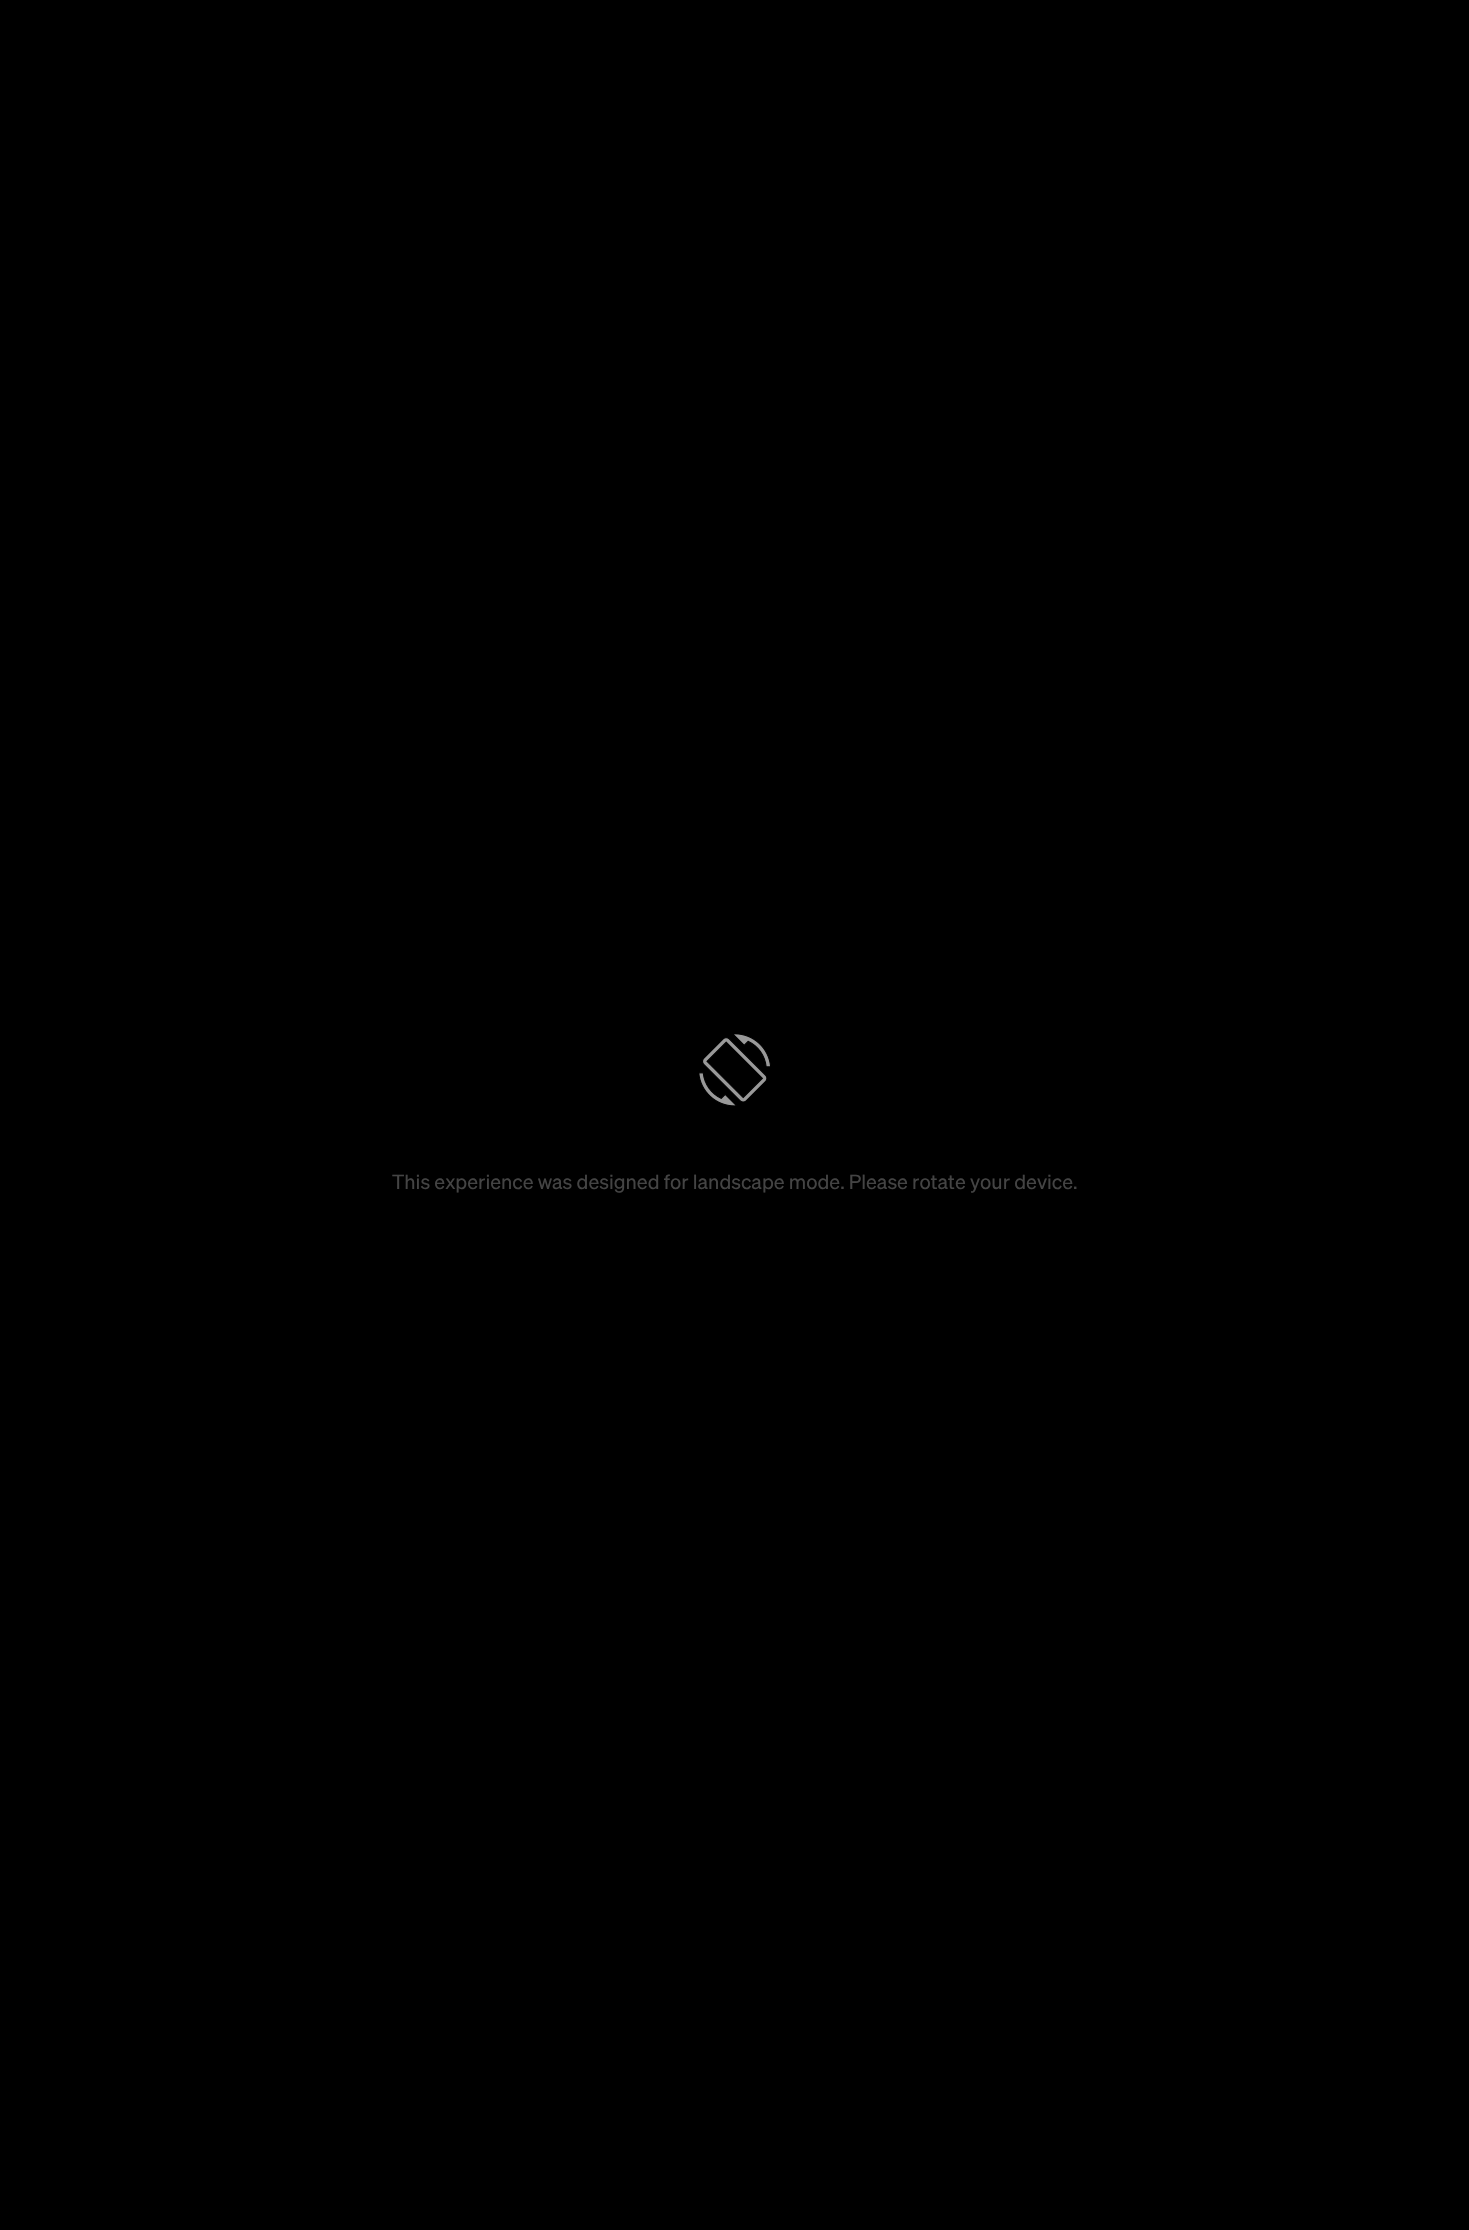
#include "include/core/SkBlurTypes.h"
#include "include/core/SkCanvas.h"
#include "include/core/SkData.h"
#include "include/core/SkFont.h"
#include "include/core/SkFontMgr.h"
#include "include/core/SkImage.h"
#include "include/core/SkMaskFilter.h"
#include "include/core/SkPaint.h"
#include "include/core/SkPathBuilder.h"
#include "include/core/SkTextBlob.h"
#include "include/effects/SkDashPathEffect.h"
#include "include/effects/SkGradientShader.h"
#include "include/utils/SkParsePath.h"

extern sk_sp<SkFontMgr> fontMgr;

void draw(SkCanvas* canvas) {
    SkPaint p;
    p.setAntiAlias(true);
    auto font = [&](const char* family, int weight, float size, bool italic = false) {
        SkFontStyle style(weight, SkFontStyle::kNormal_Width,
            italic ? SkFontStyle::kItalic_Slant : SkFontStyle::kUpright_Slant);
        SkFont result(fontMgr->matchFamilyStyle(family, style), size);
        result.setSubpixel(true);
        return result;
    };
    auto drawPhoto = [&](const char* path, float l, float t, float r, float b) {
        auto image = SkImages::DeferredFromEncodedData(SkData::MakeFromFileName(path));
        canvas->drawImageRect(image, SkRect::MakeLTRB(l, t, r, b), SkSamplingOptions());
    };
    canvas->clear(0xFF000000);
    drawPhoto("media/1.png", 699, 1034, 771, 1106);
    auto font1 = font("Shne", 400, 20);
    p.setColor(0xFF444444);
    canvas->drawString("This experience was designed for landscape mode. Please rotate your device.", 392, 1189, font1, p);
}
